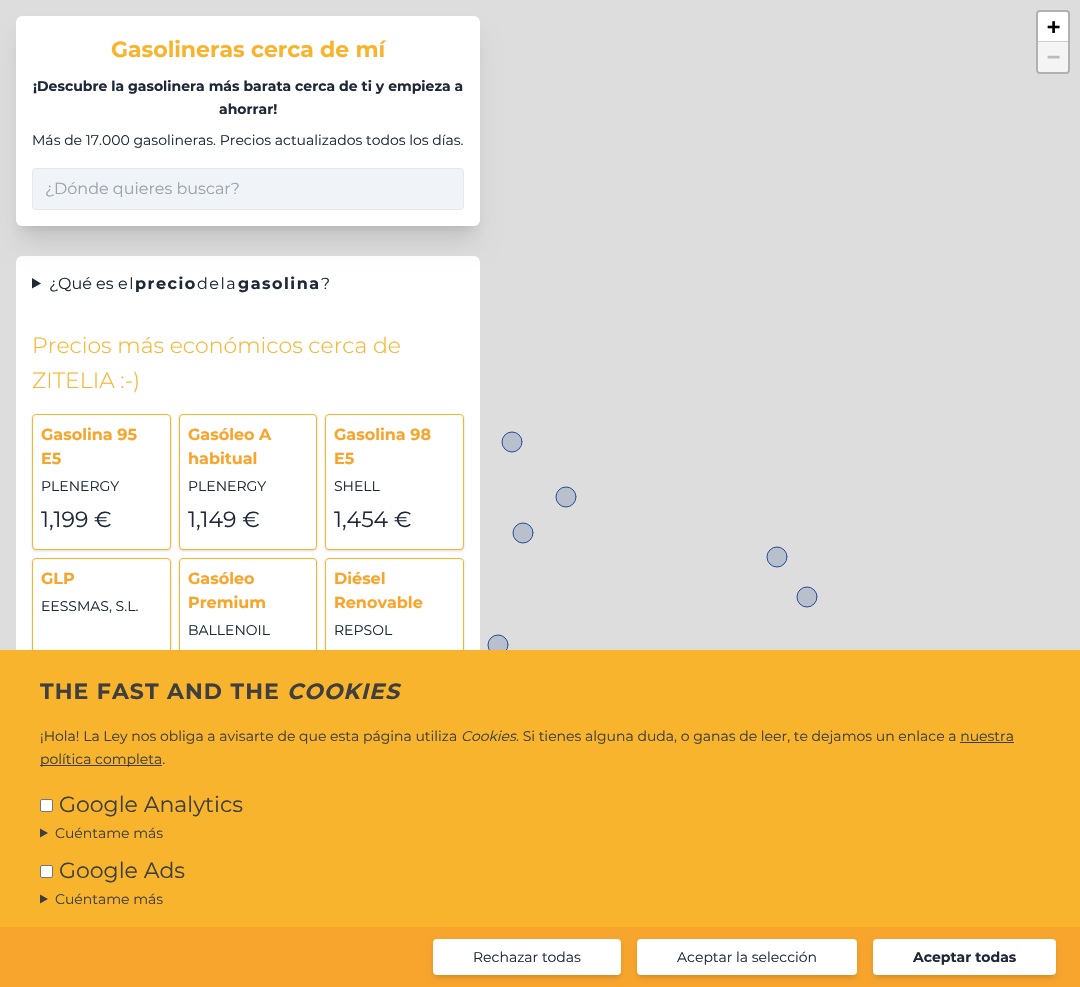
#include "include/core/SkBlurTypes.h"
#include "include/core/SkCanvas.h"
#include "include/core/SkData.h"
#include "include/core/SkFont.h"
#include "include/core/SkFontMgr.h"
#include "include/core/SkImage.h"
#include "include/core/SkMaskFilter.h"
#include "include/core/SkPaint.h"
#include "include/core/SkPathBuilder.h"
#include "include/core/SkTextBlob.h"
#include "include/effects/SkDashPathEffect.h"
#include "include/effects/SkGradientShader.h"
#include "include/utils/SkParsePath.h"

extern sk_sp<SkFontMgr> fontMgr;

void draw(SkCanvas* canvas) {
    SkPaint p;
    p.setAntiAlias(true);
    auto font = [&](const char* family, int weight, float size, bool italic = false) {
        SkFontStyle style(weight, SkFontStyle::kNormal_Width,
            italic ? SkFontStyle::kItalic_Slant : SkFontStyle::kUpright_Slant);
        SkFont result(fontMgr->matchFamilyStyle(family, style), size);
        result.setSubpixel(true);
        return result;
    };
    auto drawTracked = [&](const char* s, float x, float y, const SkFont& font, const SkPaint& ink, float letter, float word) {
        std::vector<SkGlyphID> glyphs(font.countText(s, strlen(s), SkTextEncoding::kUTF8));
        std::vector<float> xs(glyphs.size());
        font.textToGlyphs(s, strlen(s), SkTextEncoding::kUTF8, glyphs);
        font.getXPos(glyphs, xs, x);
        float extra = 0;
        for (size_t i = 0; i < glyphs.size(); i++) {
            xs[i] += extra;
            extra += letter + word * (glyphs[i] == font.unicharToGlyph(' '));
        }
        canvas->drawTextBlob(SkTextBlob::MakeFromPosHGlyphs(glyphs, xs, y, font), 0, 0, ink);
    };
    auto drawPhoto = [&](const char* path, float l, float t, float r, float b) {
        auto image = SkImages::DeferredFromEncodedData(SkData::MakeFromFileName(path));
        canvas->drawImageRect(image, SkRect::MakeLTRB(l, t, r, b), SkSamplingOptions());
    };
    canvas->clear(0xFFDDDDDD);
    p.setColor(0x1A000000);
    p.setMaskFilter(SkMaskFilter::MakeBlur(kNormal_SkBlurStyle, 5));
    canvas->drawRect(SkRect::MakeLTRB(22, 30, 474, 228), p);
    p.setMaskFilter(nullptr);
    p.setColor(0xFFFFFFFF);
    canvas->drawRoundRect(SkRect::MakeLTRB(16, 256, 480, 898), 6, 6, p);
    p.setColor(0xFF1E2839);
    canvas->drawPath(SkPathBuilder().moveTo(32, 278).lineTo(41, 283.5f).lineTo(32, 288.5f).close().detach(), p);
    p.setColor(0x1A000000);
    p.setMaskFilter(SkMaskFilter::MakeBlur(kNormal_SkBlurStyle, 12.5f));
    canvas->drawRoundRect(SkRect::MakeLTRB(21, 41, 475, 241), 1, 1, p);
    p.setMaskFilter(nullptr);
    p.setColor(0xFFFFFFFF);
    canvas->drawRoundRect(SkRect::MakeLTRB(16, 16, 480, 226), 6, 6, p);
    auto font1 = font("Montserrat", 700, 22);
    p.setColor(0xFFF8B42D);
    canvas->drawString("Gasolineras cerca de mí", 111, 57, font1, p);
    auto font2 = font("Montserrat", 700, 14);
    p.setColor(0xFF1E2839);
    canvas->drawString("¡Descubre la gasolinera más barata cerca de ti y empieza a", 33, 91, font2, p);
    canvas->drawString("ahorrar!", 219, 114, font2, p);
    auto font3 = font("Montserrat", 400, 14);
    canvas->drawString("Más de 17.000 gasolineras. Precios actualizados todos los días.", 32, 145, font3, p);
    p.setColor(0xFFF0F3F8);
    canvas->drawRoundRect(SkRect::MakeLTRB(32.5f, 168.5f, 463.5f, 209.5f), 3.5f, 3.5f, p);
    p.setStyle(SkPaint::kStroke_Style);
    p.setStrokeWidth(1);
    p.setColor(0xFFE5E7EB);
    canvas->drawRoundRect(SkRect::MakeLTRB(32.5f, 168.5f, 463.5f, 209.5f), 3.5f, 3.5f, p);
    auto font4 = font("Montserrat", 400, 16);
    p.setStyle(SkPaint::kFill_Style);
    p.setColor(0xFF9CA3AF);
    canvas->drawString("¿Dónde quieres buscar?", 45, 194, font4, p);
    p.setStyle(SkPaint::kStroke_Style);
    p.setStrokeWidth(2);
    p.setColor(0xFFB1B1B1);
    canvas->drawRoundRect(SkRect::MakeLTRB(1037, 11, 1069, 73), 3, 3, p);
    p.setStyle(SkPaint::kFill_Style);
    p.setColor(0xFFFFFFFF);
    canvas->drawPath(SkPathBuilder().moveTo(1040, 12).lineTo(1066, 12).cubicTo(1067, 12, 1068, 13, 1068, 14).lineTo(1068, 41).lineTo(1038, 41).lineTo(1038, 14).cubicTo(1038, 13, 1039, 12, 1040, 12).close().detach(), p);
    p.setColor(0xFFCCCCCC);
    canvas->drawRect(SkRect::MakeLTRB(1038, 41, 1068, 42), p);
    auto font5 = font("DejaVu Sans Mono", 700, 22);
    p.setColor(0xFF000000);
    canvas->drawString("+", 1047, 34, font5, p);
    p.setColor(0xFFF4F4F4);
    canvas->drawPath(SkPathBuilder().moveTo(1038, 42).lineTo(1068, 42).lineTo(1068, 70).cubicTo(1068, 71, 1067, 72, 1066, 72).lineTo(1040, 72).cubicTo(1039, 72, 1038, 71, 1038, 70).close().detach(), p);
    p.setColor(0xFFBBBBBB);
    canvas->drawString("−", 1047, 64, font5, p);
    drawPhoto("media/1.png", 487, 431, 818, 650);
    p.setColor(0xFF1E2839);
    canvas->drawString("¿Qué es", 49, 289, font4, p);
    drawTracked("el", 118, 289, font4, p, 1.5f, 0);
    auto font6 = font("Montserrat", 700, 16);
    drawTracked("precio", 135, 289, font6, p, 1.5f, 0);
    drawTracked("dela", 197, 289, font4, p, 1.5f, 0);
    drawTracked("gasolina", 238, 289, font6, p, 1.5f, 0);
    canvas->drawString("?", 321, 289, font4, p);
    auto font7 = font("Montserrat", 300, 22);
    p.setColor(0xFFF8B42D);
    canvas->drawString("Precios más económicos cerca de", 32, 353, font7, p);
    canvas->drawString("ZITELIA :-)", 32, 388, font7, p);
    p.setColor(0x1A000000);
    p.setMaskFilter(SkMaskFilter::MakeBlur(kNormal_SkBlurStyle, 1));
    canvas->drawRoundRect(SkRect::MakeLTRB(33, 416, 170, 550), 3, 3, p);
    p.setMaskFilter(nullptr);
    p.setMaskFilter(SkMaskFilter::MakeBlur(kNormal_SkBlurStyle, 1.5f));
    canvas->drawRoundRect(SkRect::MakeLTRB(32, 415, 171, 551), 4, 4, p);
    p.setMaskFilter(nullptr);
    p.setColor(0xFFFFFFFF);
    canvas->drawRoundRect(SkRect::MakeLTRB(32.5f, 414.5f, 170.5f, 549.5f), 3.5f, 3.5f, p);
    p.setStyle(SkPaint::kStroke_Style);
    p.setStrokeWidth(1);
    p.setColor(0xFFF8B42D);
    canvas->drawRoundRect(SkRect::MakeLTRB(32.5f, 414.5f, 170.5f, 549.5f), 3.5f, 3.5f, p);
    p.setStyle(SkPaint::kFill_Style);
    p.setColor(0xFFF8A52D);
    canvas->drawString("Gasolina 95", 41, 440, font6, p);
    canvas->drawString("E5", 41, 464, font6, p);
    p.setColor(0xFF1E2839);
    canvas->drawString("PLENERGY", 41, 491, font3, p);
    auto font8 = font("Montserrat", 400, 22);
    canvas->drawString("1,199 €", 41, 527, font8, p);
    p.setColor(0x1A000000);
    p.setMaskFilter(SkMaskFilter::MakeBlur(kNormal_SkBlurStyle, 1));
    canvas->drawRoundRect(SkRect::MakeLTRB(180, 416, 316, 550), 3, 3, p);
    p.setMaskFilter(nullptr);
    p.setMaskFilter(SkMaskFilter::MakeBlur(kNormal_SkBlurStyle, 1.5f));
    canvas->drawRoundRect(SkRect::MakeLTRB(179, 415, 317, 551), 4, 4, p);
    p.setMaskFilter(nullptr);
    p.setColor(0xFFFFFFFF);
    canvas->drawRoundRect(SkRect::MakeLTRB(179.5f, 414.5f, 316.5f, 549.5f), 3.5f, 3.5f, p);
    p.setStyle(SkPaint::kStroke_Style);
    p.setColor(0xFFF8B42D);
    canvas->drawRoundRect(SkRect::MakeLTRB(179.5f, 414.5f, 316.5f, 549.5f), 3.5f, 3.5f, p);
    p.setStyle(SkPaint::kFill_Style);
    p.setColor(0xFFF8A52D);
    canvas->drawString("Gasóleo A", 188, 440, font6, p);
    canvas->drawString("habitual", 188, 464, font6, p);
    p.setColor(0xFF1E2839);
    canvas->drawString("PLENERGY", 188, 491, font3, p);
    canvas->drawString("1,149 €", 188, 527, font8, p);
    p.setColor(0x1A000000);
    p.setMaskFilter(SkMaskFilter::MakeBlur(kNormal_SkBlurStyle, 1));
    canvas->drawRoundRect(SkRect::MakeLTRB(326, 416, 463, 550), 3, 3, p);
    p.setMaskFilter(nullptr);
    p.setMaskFilter(SkMaskFilter::MakeBlur(kNormal_SkBlurStyle, 1.5f));
    canvas->drawRoundRect(SkRect::MakeLTRB(325, 415, 464, 551), 4, 4, p);
    p.setMaskFilter(nullptr);
    p.setColor(0xFFFFFFFF);
    canvas->drawRoundRect(SkRect::MakeLTRB(325.5f, 414.5f, 463.5f, 549.5f), 3.5f, 3.5f, p);
    p.setStyle(SkPaint::kStroke_Style);
    p.setColor(0xFFF8B42D);
    canvas->drawRoundRect(SkRect::MakeLTRB(325.5f, 414.5f, 463.5f, 549.5f), 3.5f, 3.5f, p);
    p.setStyle(SkPaint::kFill_Style);
    p.setColor(0xFFF8A52D);
    canvas->drawString("Gasolina 98", 334, 440, font6, p);
    canvas->drawString("E5", 334, 464, font6, p);
    p.setColor(0xFF1E2839);
    canvas->drawString("SHELL", 334, 491, font3, p);
    canvas->drawString("1,454 €", 334, 527, font8, p);
    p.setColor(0x1A000000);
    p.setMaskFilter(SkMaskFilter::MakeBlur(kNormal_SkBlurStyle, 1.5f));
    canvas->drawRoundRect(SkRect::MakeLTRB(32, 559, 171, 695), 4, 4, p);
    p.setMaskFilter(nullptr);
    p.setColor(0xFFFFFFFF);
    canvas->drawRoundRect(SkRect::MakeLTRB(32.5f, 558.5f, 170.5f, 693.5f), 3.5f, 3.5f, p);
    p.setStyle(SkPaint::kStroke_Style);
    p.setColor(0xFFF8B42D);
    canvas->drawRoundRect(SkRect::MakeLTRB(32.5f, 558.5f, 170.5f, 693.5f), 3.5f, 3.5f, p);
    p.setStyle(SkPaint::kFill_Style);
    p.setColor(0xFFF8A52D);
    canvas->drawString("GLP", 41, 584, font6, p);
    p.setColor(0xFF1E2839);
    canvas->drawString("EESSMAS, S.L.", 41, 611, font3, p);
    p.setColor(0x1A000000);
    p.setMaskFilter(SkMaskFilter::MakeBlur(kNormal_SkBlurStyle, 1.5f));
    canvas->drawRoundRect(SkRect::MakeLTRB(179, 559, 317, 695), 4, 4, p);
    p.setMaskFilter(nullptr);
    p.setColor(0xFFFFFFFF);
    canvas->drawRoundRect(SkRect::MakeLTRB(179.5f, 558.5f, 316.5f, 693.5f), 3.5f, 3.5f, p);
    p.setStyle(SkPaint::kStroke_Style);
    p.setColor(0xFFF8B42D);
    canvas->drawRoundRect(SkRect::MakeLTRB(179.5f, 558.5f, 316.5f, 693.5f), 3.5f, 3.5f, p);
    p.setStyle(SkPaint::kFill_Style);
    p.setColor(0xFFF8A52D);
    canvas->drawString("Gasóleo", 188, 584, font6, p);
    canvas->drawString("Premium", 188, 608, font6, p);
    p.setColor(0xFF1E2839);
    canvas->drawString("BALLENOIL", 188, 635, font3, p);
    p.setColor(0x1A000000);
    p.setMaskFilter(SkMaskFilter::MakeBlur(kNormal_SkBlurStyle, 1.5f));
    canvas->drawRoundRect(SkRect::MakeLTRB(325, 559, 464, 695), 4, 4, p);
    p.setMaskFilter(nullptr);
    p.setColor(0xFFFFFFFF);
    canvas->drawRoundRect(SkRect::MakeLTRB(325.5f, 558.5f, 463.5f, 693.5f), 3.5f, 3.5f, p);
    p.setStyle(SkPaint::kStroke_Style);
    p.setColor(0xFFF8B42D);
    canvas->drawRoundRect(SkRect::MakeLTRB(325.5f, 558.5f, 463.5f, 693.5f), 3.5f, 3.5f, p);
    p.setStyle(SkPaint::kFill_Style);
    p.setColor(0xFFF8A52D);
    canvas->drawString("Diésel", 334, 584, font6, p);
    canvas->drawString("Renovable", 334, 608, font6, p);
    p.setColor(0xFF1E2839);
    canvas->drawString("REPSOL", 334, 635, font3, p);
    p.setColor(0xFFF8B42D);
    canvas->drawRect(SkRect::MakeLTRB(0, 650, 1080, 927), p);
    p.setColor(0xFF3F3F3F);
    drawTracked("THE FAST AND THE", 40, 699, font1, p, 1.1f, 0);
    auto font9 = font("Montserrat", 700, 22, true);
    drawTracked("COOKIES", 287, 699, font9, p, 1.1f, 0);
    canvas->drawString("¡Hola! La Ley nos obliga a avisarte de que esta página utiliza", 40, 741, font3, p);
    auto font10 = font("Montserrat", 400, 14, true);
    canvas->drawString("Cookies", 461, 741, font10, p);
    canvas->drawString(". Si tienes alguna duda, o ganas de leer, te dejamos un enlace a nuestra", 516, 741, font3, p);
    canvas->drawRect(SkRect::MakeLTRB(40, 765, 162, 766), p);
    canvas->drawString("política completa.", 40, 764, font3, p);
    canvas->drawRect(SkRect::MakeLTRB(960, 742, 1014, 743), p);
    p.setColor(0xFFFFFFFF);
    canvas->drawRoundRect(SkRect::MakeLTRB(40.5f, 799.5f, 52.5f, 811.5f), 1.5f, 1.5f, p);
    p.setStyle(SkPaint::kStroke_Style);
    p.setColor(0xFF767676);
    canvas->drawRoundRect(SkRect::MakeLTRB(40.5f, 799.5f, 52.5f, 811.5f), 1.5f, 1.5f, p);
    p.setStyle(SkPaint::kFill_Style);
    p.setColor(0xFF3F3F3F);
    canvas->drawString("Google Analytics", 59, 812, font8, p);
    canvas->drawPath(SkPathBuilder().moveTo(40, 828.5f).lineTo(48, 833).lineTo(40, 837.5f).close().detach(), p);
    canvas->drawString("Cuéntame más", 55, 838, font3, p);
    p.setColor(0xFFFFFFFF);
    canvas->drawRoundRect(SkRect::MakeLTRB(40.5f, 865.5f, 52.5f, 877.5f), 1.5f, 1.5f, p);
    p.setStyle(SkPaint::kStroke_Style);
    p.setColor(0xFF767676);
    canvas->drawRoundRect(SkRect::MakeLTRB(40.5f, 865.5f, 52.5f, 877.5f), 1.5f, 1.5f, p);
    p.setStyle(SkPaint::kFill_Style);
    p.setColor(0xFF3F3F3F);
    canvas->drawString("Google Ads", 59, 878, font8, p);
    canvas->drawPath(SkPathBuilder().moveTo(40, 894.5f).lineTo(48, 899).lineTo(40, 903.5f).close().detach(), p);
    canvas->drawString("Cuéntame más", 55, 904, font3, p);
    p.setColor(0xFFF8A52D);
    canvas->drawRect(SkRect::MakeLTRB(0, 927, 1080, 987), p);
    p.setColor(0x1A000000);
    p.setMaskFilter(SkMaskFilter::MakeBlur(kNormal_SkBlurStyle, 2));
    canvas->drawRoundRect(SkRect::MakeLTRB(435, 943, 619, 975), 2, 2, p);
    p.setMaskFilter(nullptr);
    p.setMaskFilter(SkMaskFilter::MakeBlur(kNormal_SkBlurStyle, 3));
    canvas->drawRoundRect(SkRect::MakeLTRB(434, 944, 620, 978), 3, 3, p);
    p.setMaskFilter(nullptr);
    p.setColor(0xFFFFFFFF);
    canvas->drawRoundRect(SkRect::MakeLTRB(433, 939, 621, 975), 4, 4, p);
    p.setColor(0xFF1E2839);
    canvas->drawString("Rechazar todas", 473, 962, font3, p);
    p.setColor(0x1A000000);
    p.setMaskFilter(SkMaskFilter::MakeBlur(kNormal_SkBlurStyle, 2));
    canvas->drawRoundRect(SkRect::MakeLTRB(639, 943, 855, 975), 2, 2, p);
    p.setMaskFilter(nullptr);
    p.setMaskFilter(SkMaskFilter::MakeBlur(kNormal_SkBlurStyle, 3));
    canvas->drawRoundRect(SkRect::MakeLTRB(638, 944, 856, 978), 3, 3, p);
    p.setMaskFilter(nullptr);
    p.setColor(0xFFFFFFFF);
    canvas->drawRoundRect(SkRect::MakeLTRB(637, 939, 857, 975), 4, 4, p);
    p.setColor(0xFF1E2839);
    canvas->drawString("Aceptar la selección", 677, 962, font3, p);
    p.setColor(0x1A000000);
    p.setMaskFilter(SkMaskFilter::MakeBlur(kNormal_SkBlurStyle, 2));
    canvas->drawRoundRect(SkRect::MakeLTRB(875, 943, 1054, 975), 2, 2, p);
    p.setMaskFilter(nullptr);
    p.setMaskFilter(SkMaskFilter::MakeBlur(kNormal_SkBlurStyle, 3));
    canvas->drawRoundRect(SkRect::MakeLTRB(874, 944, 1055, 978), 3, 3, p);
    p.setMaskFilter(nullptr);
    p.setColor(0xFFFFFFFF);
    canvas->drawRoundRect(SkRect::MakeLTRB(873, 939, 1056, 975), 4, 4, p);
    p.setColor(0xFF1E2839);
    canvas->drawString("Aceptar todas", 913, 962, font2, p);
}
